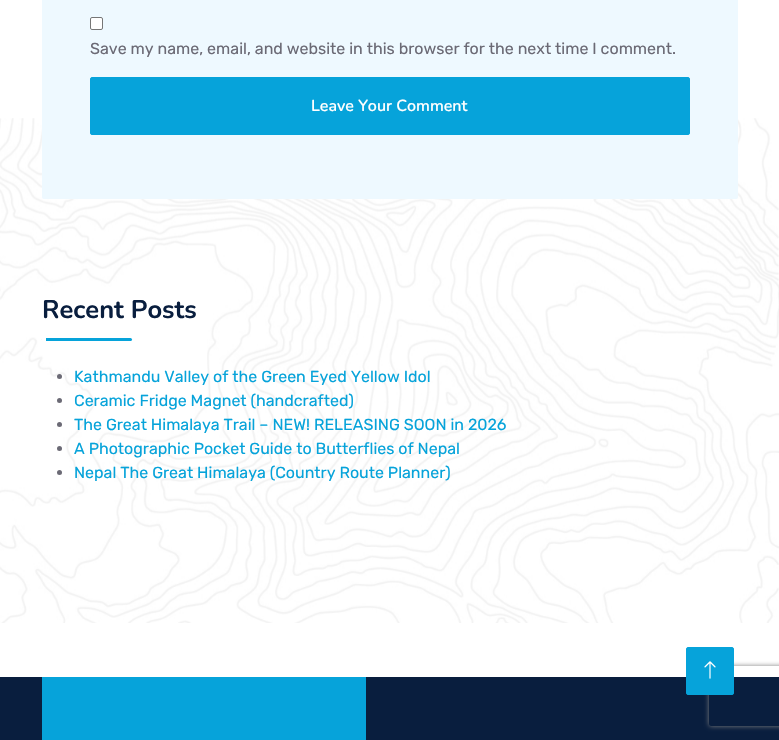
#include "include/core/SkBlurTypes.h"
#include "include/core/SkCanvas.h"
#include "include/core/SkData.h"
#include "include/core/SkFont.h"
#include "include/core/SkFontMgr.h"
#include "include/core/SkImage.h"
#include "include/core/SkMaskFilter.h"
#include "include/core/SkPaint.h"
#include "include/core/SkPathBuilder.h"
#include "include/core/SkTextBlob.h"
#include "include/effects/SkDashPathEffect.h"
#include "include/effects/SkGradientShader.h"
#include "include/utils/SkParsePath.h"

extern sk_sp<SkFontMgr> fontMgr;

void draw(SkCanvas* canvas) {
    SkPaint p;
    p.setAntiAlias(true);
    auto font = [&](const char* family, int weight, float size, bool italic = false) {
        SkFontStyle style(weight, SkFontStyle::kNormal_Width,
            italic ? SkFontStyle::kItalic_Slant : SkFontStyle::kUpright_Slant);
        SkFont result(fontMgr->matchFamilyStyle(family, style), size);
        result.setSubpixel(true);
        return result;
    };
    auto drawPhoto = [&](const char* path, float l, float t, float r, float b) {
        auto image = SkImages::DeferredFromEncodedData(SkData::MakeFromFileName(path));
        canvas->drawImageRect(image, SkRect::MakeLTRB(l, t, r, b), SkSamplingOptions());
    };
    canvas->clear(0xFFFFFFFF);
    drawPhoto("media/1.png", 0, 118, 779, 623);
    p.setColor(0xFFEEF9FF);
    canvas->drawRoundRect(SkRect::MakeLTRB(42, -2, 738, 199), 2, 2, p);
    p.setColor(0xFFFFFFFF);
    canvas->drawRoundRect(SkRect::MakeLTRB(90.5f, 17.5f, 102.5f, 29.5f), 1.5f, 1.5f, p);
    p.setStyle(SkPaint::kStroke_Style);
    p.setStrokeWidth(1);
    p.setColor(0xFF767676);
    canvas->drawRoundRect(SkRect::MakeLTRB(90.5f, 17.5f, 102.5f, 29.5f), 1.5f, 1.5f, p);
    auto font1 = font("Rubik", 400, 16);
    p.setStyle(SkPaint::kFill_Style);
    p.setColor(0xFF6B6A75);
    canvas->drawString("Save my name, email, and website in this browser for the next time I comment.", 90, 54, font1, p);
    p.setColor(0xFF06A3DA);
    canvas->drawRoundRect(SkRect::MakeLTRB(90.5f, 77.5f, 689.5f, 134.5f), 1.5f, 1.5f, p);
    p.setStyle(SkPaint::kStroke_Style);
    canvas->drawRoundRect(SkRect::MakeLTRB(90.5f, 77.5f, 689.5f, 134.5f), 1.5f, 1.5f, p);
    auto font2 = font("Nunito", 600, 16);
    p.setStyle(SkPaint::kFill_Style);
    p.setColor(0xFFFFFFFF);
    canvas->drawString("Leave Your Comment", 311, 111, font2, p);
    auto font3 = font("Nunito", 700, 25.5f);
    p.setColor(0xFF091E3E);
    canvas->drawString("Recent Posts", 42, 318, font3, p);
    p.setColor(0xFF06A3DA);
    canvas->drawRoundRect(SkRect::MakeLTRB(42, 338, 132, 341), 1.5f, 1.5f, p);
    p.setColor(0xFFFFFFFF);
    canvas->drawRect(SkRect::MakeLTRB(42, 338, 46, 341), p);
    p.setColor(0xFF6B6A75);
    canvas->drawCircle(59.5f, 376.5f, 2.5f, p);
    p.setColor(0xFF06A3DA);
    canvas->drawString("Kathmandu Valley of the Green Eyed Yellow Idol", 74, 382, font1, p);
    p.setColor(0xFF6B6A75);
    canvas->drawCircle(59.5f, 400.5f, 2.5f, p);
    p.setColor(0xFF06A3DA);
    canvas->drawString("Ceramic Fridge Magnet (handcrafted)", 74, 406, font1, p);
    p.setColor(0xFF6B6A75);
    canvas->drawCircle(59.5f, 424.5f, 2.5f, p);
    p.setColor(0xFF06A3DA);
    canvas->drawString("The Great Himalaya Trail – NEW! RELEASING SOON in 2026", 74, 430, font1, p);
    p.setColor(0xFF6B6A75);
    canvas->drawCircle(59.5f, 448.5f, 2.5f, p);
    p.setColor(0xFF06A3DA);
    canvas->drawString("A Photographic Pocket Guide to Butterflies of Nepal", 74, 454, font1, p);
    p.setColor(0xFF6B6A75);
    canvas->drawCircle(59.5f, 472.5f, 2.5f, p);
    p.setColor(0xFF06A3DA);
    canvas->drawString("Nepal The Great Himalaya (Country Route Planner)", 74, 478, font1, p);
    p.setColor(0xFF091E3E);
    canvas->drawRect(SkRect::MakeLTRB(0, 677, 779, 740), p);
    canvas->save();
    canvas->clipPath(SkPathBuilder(SkPathFillType::kEvenOdd).moveTo(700, 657).lineTo(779, 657).lineTo(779, 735).lineTo(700, 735).close().moveTo(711, 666).lineTo(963, 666).cubicTo(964, 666, 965, 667, 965, 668).lineTo(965, 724).cubicTo(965, 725, 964, 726, 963, 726).lineTo(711, 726).cubicTo(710, 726, 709, 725, 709, 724).lineTo(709, 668).cubicTo(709, 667, 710, 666, 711, 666).close().detach(), true);
    p.setColor(0xFF808080);
    p.setMaskFilter(SkMaskFilter::MakeBlur(kNormal_SkBlurStyle, 2.5f));
    canvas->drawRoundRect(SkRect::MakeLTRB(709, 666, 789, 726), 2, 2, p);
    p.setMaskFilter(nullptr);
    canvas->restore();
    p.setColor(0xFF06A3DA);
    canvas->drawRoundRect(SkRect::MakeLTRB(686.5f, 647.5f, 733.5f, 694.5f), 1.5f, 1.5f, p);
    p.setStyle(SkPaint::kStroke_Style);
    canvas->drawRoundRect(SkRect::MakeLTRB(686.5f, 647.5f, 733.5f, 694.5f), 1.5f, 1.5f, p);
    drawPhoto("media/2.png", 704, 661, 716, 679);
    p.setStyle(SkPaint::kFill_Style);
    canvas->drawRect(SkRect::MakeLTRB(42, 677, 366, 740), p);
}
